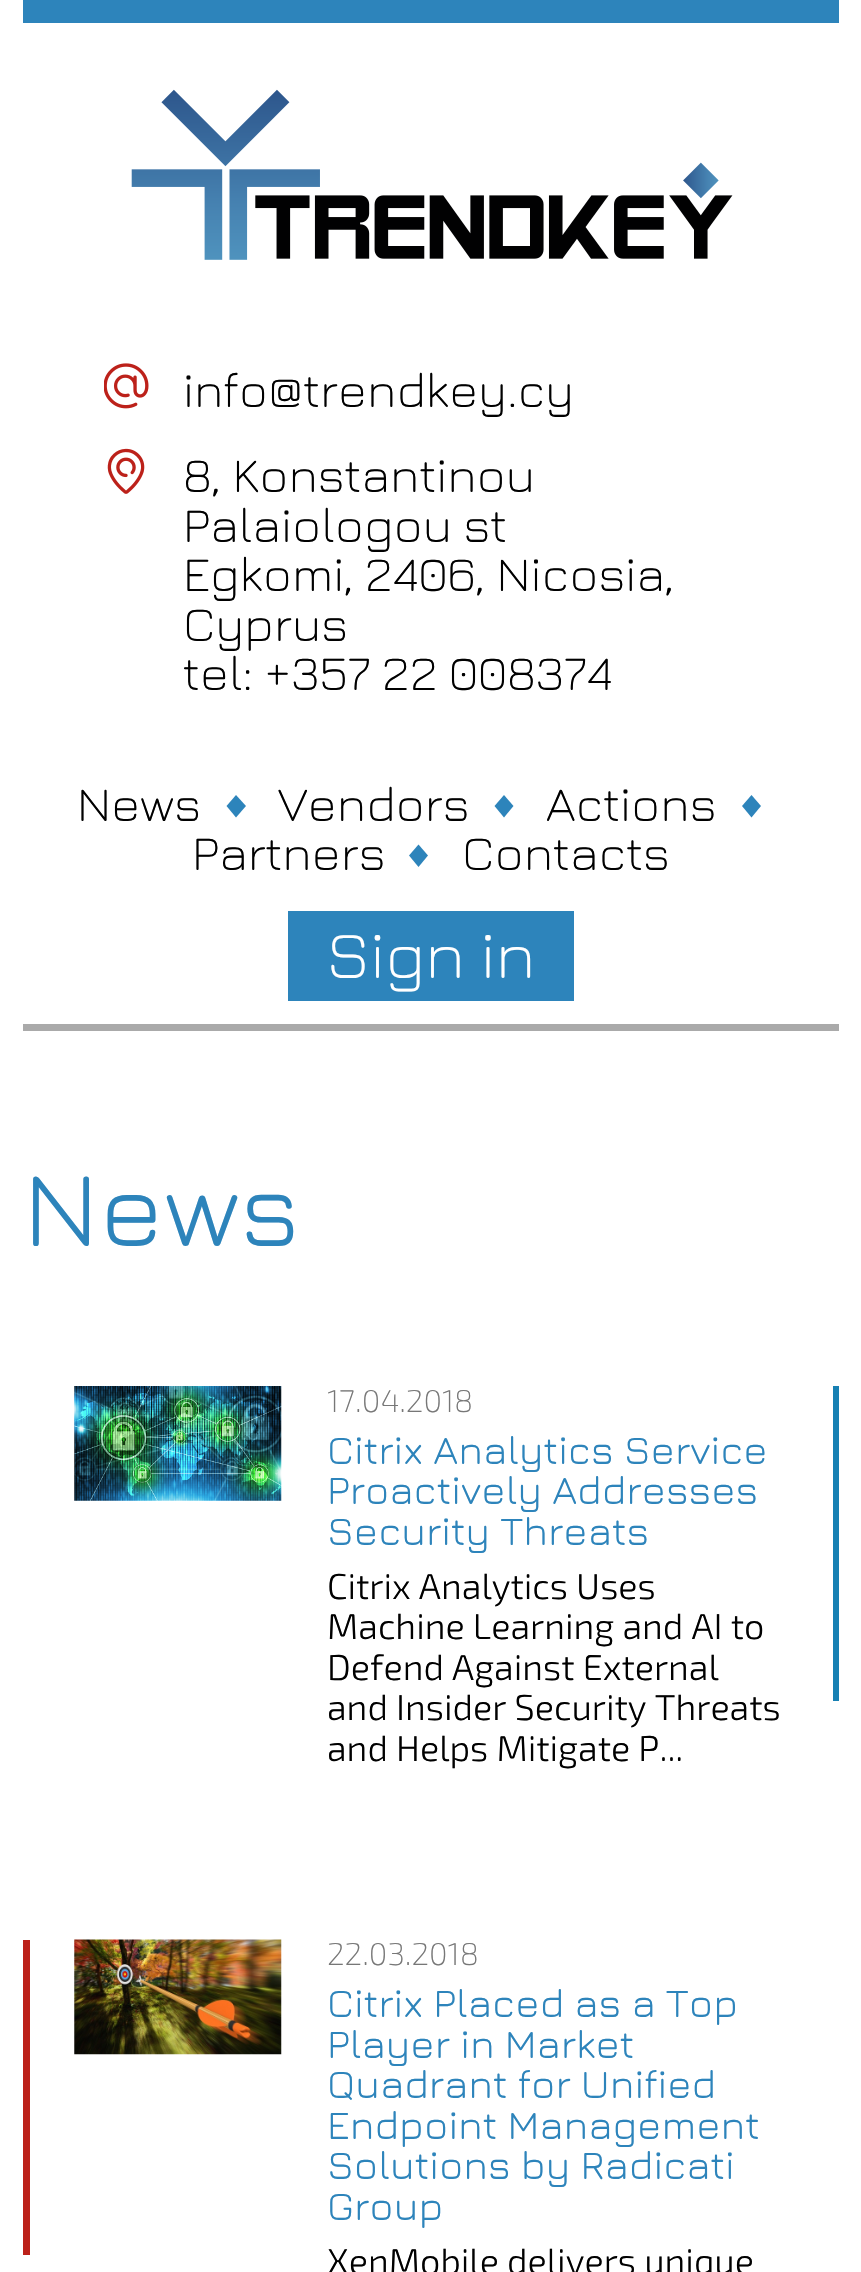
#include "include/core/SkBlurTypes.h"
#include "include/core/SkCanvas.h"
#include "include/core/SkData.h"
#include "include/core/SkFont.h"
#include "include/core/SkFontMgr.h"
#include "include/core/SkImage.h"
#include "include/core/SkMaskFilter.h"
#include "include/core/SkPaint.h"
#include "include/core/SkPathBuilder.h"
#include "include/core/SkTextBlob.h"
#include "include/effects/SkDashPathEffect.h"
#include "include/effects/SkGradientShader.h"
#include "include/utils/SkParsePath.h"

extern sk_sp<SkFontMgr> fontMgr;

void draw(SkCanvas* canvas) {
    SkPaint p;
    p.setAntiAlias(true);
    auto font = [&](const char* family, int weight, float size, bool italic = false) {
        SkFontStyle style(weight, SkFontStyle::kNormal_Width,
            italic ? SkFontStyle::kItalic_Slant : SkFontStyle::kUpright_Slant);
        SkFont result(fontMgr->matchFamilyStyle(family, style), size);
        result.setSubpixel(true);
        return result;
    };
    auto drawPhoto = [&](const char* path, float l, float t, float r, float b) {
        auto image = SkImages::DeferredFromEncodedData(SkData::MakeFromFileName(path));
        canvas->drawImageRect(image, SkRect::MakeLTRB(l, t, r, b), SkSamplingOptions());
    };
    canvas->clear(0xFFFFFFFF);
    p.setColor(0xFF2D84BB);
    canvas->drawRect(SkRect::MakeLTRB(23, 0, 839, 23), p);
    drawPhoto("media/1.png", 131, 89, 733, 260);
    drawPhoto("media/2.png", 104, 363, 149, 409);
    auto font1 = font("Jura", 300, 49.5f);
    p.setColor(0xFF000000);
    canvas->drawString("info@trendkey.cy", 183, 407, font1, p);
    drawPhoto("media/3.png", 107, 448, 145, 494);
    {
        const struct { const char* s; float x, y; } items[] = {
            {"8, Konstantinou", 183, 492},
            {"Palaiologou st", 183, 542},
            {"Egkomi, 2406, Nicosia,", 183, 591},
            {"Cyprus", 183, 641},
            {"tel: +357 22 008374", 183, 690},
            {"News", 77, 821},
        };
        for (auto [s, x, y] : items) {
            canvas->drawString(s, x, y, font1, p);
        }
    }
    p.setColor(0xFF2D84BB);
    canvas->drawPath(SkPathBuilder().moveTo(236, 795).lineTo(246, 806).lineTo(236, 817.5f).lineTo(226.5f, 806).close().detach(), p);
    p.setColor(0xFF000000);
    canvas->drawString("Vendors", 278, 821, font1, p);
    p.setColor(0xFF2D84BB);
    canvas->drawPath(SkPathBuilder().moveTo(504, 795).lineTo(513.5f, 806).lineTo(504, 817.5f).lineTo(494.5f, 806).close().detach(), p);
    p.setColor(0xFF000000);
    canvas->drawString("Actions", 546, 821, font1, p);
    p.setColor(0xFF2D84BB);
    canvas->drawPath(SkPathBuilder().moveTo(751.5f, 795).lineTo(761, 806).lineTo(751.5f, 817.5f).lineTo(742, 806).close().detach(), p);
    p.setColor(0xFF000000);
    canvas->drawString("Partners", 192, 870, font1, p);
    p.setColor(0xFF2D84BB);
    canvas->drawPath(SkPathBuilder().moveTo(418.5f, 844.5f).lineTo(428, 855.5f).lineTo(418.5f, 867).lineTo(409, 855.5f).close().detach(), p);
    p.setColor(0xFF000000);
    canvas->drawString("Contacts", 462, 870, font1, p);
    p.setColor(0xFF2D84BB);
    canvas->drawRect(SkRect::MakeLTRB(288, 911, 574, 1001), p);
    auto font2 = font("Jura", 300, 67.5f);
    p.setColor(0xFFFFFFFF);
    canvas->drawString("Sign in", 326, 978, font2, p);
    p.setColor(0xFFAAAAAA);
    canvas->drawRect(SkRect::MakeLTRB(23, 1024, 839, 1031), p);
    auto font3 = font("Jura", 400, 108);
    p.setColor(0xFF2D84BB);
    canvas->drawString("News", 23, 1246, font3, p);
    drawPhoto("media/4.png", 74, 1386, 282, 1501);
    auto font4 = font("Exo 2", 200, 31.5f);
    p.setColor(0xFF777777);
    canvas->drawString("17.04.2018", 327, 1412, font4, p);
    auto font5 = font("Jura", 400, 40.5f);
    p.setColor(0xFF2D84BB);
    {
        const struct { const char* s; float x, y; } items[] = {
            {"Citrix Analytics Service", 327, 1464},
            {"Proactively Addresses", 327, 1504},
            {"Security Threats", 327, 1545},
        };
        for (auto [s, x, y] : items) {
            canvas->drawString(s, x, y, font5, p);
        }
    }
    auto font6 = font("Exo 2", 300, 36);
    p.setColor(0xFF000000);
    {
        const struct { const char* s; float x, y; } items[] = {
            {"Citrix Analytics Uses", 327, 1599},
            {"Machine Learning and AI to", 327, 1639},
            {"Defend Against External", 327, 1680},
            {"and Insider Security Threats", 327, 1720},
            {"and Helps Mitigate P...", 327, 1761},
        };
        for (auto [s, x, y] : items) {
            canvas->drawString(s, x, y, font6, p);
        }
    }
    p.setColor(0xFF1780B3);
    canvas->drawRect(SkRect::MakeLTRB(833, 1386, 839, 1701), p);
    p.setColor(0xFFBC211A);
    canvas->drawRect(SkRect::MakeLTRB(23, 1940, 30, 2255), p);
    drawPhoto("media/5.png", 74, 1939, 282, 2055);
    p.setColor(0xFF777777);
    canvas->drawString("22.03.2018", 327, 1965, font4, p);
    p.setColor(0xFF2D84BB);
    {
        const struct { const char* s; float x, y; } items[] = {
            {"Citrix Placed as a Top", 327, 2017},
            {"Player in Market", 327, 2058},
            {"Quadrant for Unified", 327, 2098},
            {"Endpoint Management", 327, 2139},
            {"Solutions by Radicati", 327, 2179},
            {"Group", 327, 2220},
        };
        for (auto [s, x, y] : items) {
            canvas->drawString(s, x, y, font5, p);
        }
    }
    p.setColor(0xFF000000);
    canvas->drawString("XenMobile delivers unique", 327, 2274, font6, p);
}
